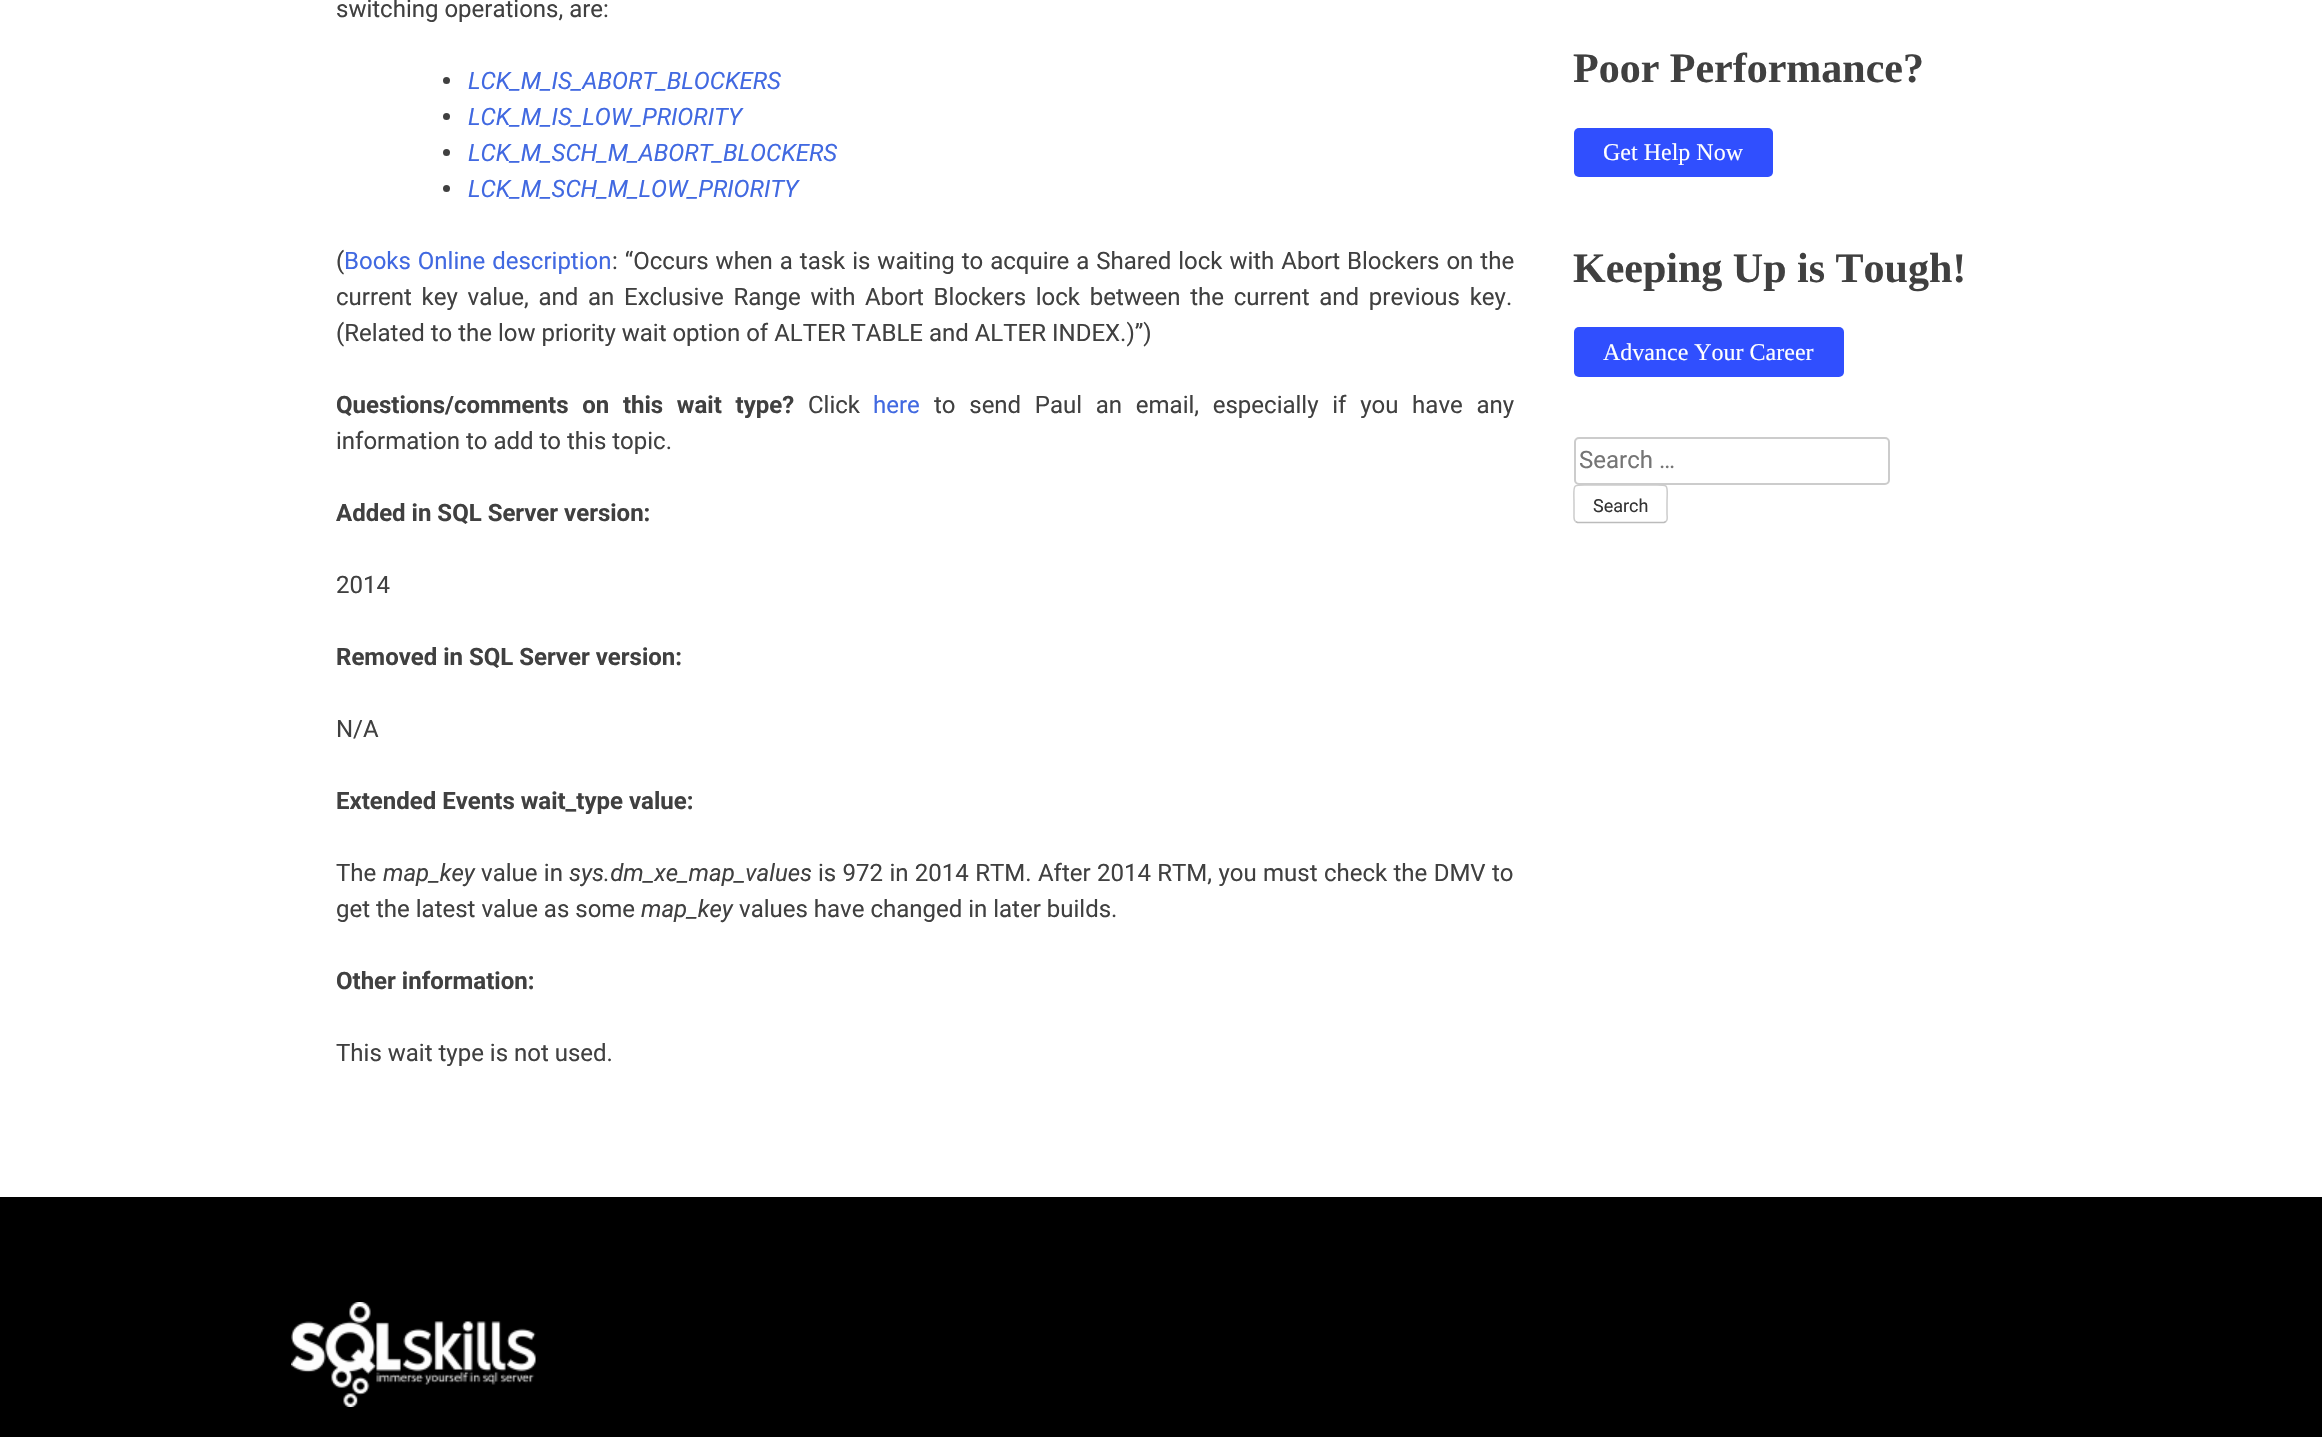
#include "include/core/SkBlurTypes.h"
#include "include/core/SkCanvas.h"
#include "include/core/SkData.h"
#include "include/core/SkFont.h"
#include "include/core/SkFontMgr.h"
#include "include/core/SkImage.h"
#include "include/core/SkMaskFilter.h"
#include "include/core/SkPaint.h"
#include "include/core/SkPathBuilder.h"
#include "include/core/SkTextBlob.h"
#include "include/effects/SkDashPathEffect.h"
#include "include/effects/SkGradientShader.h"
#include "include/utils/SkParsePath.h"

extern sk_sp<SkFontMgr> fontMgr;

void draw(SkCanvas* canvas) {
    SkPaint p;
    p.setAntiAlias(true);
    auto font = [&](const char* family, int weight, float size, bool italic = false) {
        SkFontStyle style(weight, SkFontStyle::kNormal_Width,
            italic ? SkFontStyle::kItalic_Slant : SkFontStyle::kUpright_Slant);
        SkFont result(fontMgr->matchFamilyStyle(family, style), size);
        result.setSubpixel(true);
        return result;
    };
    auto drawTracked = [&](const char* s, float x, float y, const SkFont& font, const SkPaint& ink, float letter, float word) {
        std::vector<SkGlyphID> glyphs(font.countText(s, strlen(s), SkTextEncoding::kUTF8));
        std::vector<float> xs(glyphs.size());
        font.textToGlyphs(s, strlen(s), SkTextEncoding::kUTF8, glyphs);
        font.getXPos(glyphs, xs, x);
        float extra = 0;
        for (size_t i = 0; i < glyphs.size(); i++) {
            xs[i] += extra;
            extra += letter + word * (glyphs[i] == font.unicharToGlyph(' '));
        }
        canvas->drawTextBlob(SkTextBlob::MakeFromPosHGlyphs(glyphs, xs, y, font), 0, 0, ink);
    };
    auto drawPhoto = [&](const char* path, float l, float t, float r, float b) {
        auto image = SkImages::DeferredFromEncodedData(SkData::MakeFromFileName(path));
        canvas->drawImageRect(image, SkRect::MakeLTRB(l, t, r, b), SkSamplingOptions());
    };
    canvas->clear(0xFFFFFFFF);
    auto font1 = font("Roboto", 400, 24);
    p.setColor(0xFF404040);
    canvas->drawString("switching operations, are:", 336, 17, font1, p);
    canvas->drawCircle(446.5f, 80.5f, 3.5f, p);
    auto font2 = font("Roboto", 400, 24, true);
    p.setColor(0xFF4169E1);
    canvas->drawString("LCK_M_IS_ABORT_BLOCKERS", 468, 89, font2, p);
    p.setColor(0xFF404040);
    canvas->drawCircle(446.5f, 116.5f, 3.5f, p);
    p.setColor(0xFF4169E1);
    canvas->drawString("LCK_M_IS_LOW_PRIORITY", 468, 125, font2, p);
    p.setColor(0xFF404040);
    canvas->drawCircle(446.5f, 152.5f, 3.5f, p);
    p.setColor(0xFF4169E1);
    canvas->drawString("LCK_M_SCH_M_ABORT_BLOCKERS", 468, 161, font2, p);
    p.setColor(0xFF404040);
    canvas->drawCircle(446.5f, 188.5f, 3.5f, p);
    p.setColor(0xFF4169E1);
    canvas->drawString("LCK_M_SCH_M_LOW_PRIORITY", 468, 197, font2, p);
    p.setColor(0xFF404040);
    canvas->drawString("(", 336, 269, font1, p);
    p.setColor(0xFF4169E1);
    drawTracked("Books Online description", 344, 269, font1, p, 0, 1);
    p.setColor(0xFF404040);
    drawTracked(": “Occurs when a task is waiting to acquire a Shared lock with Abort Blockers on the", 612, 269, font1, p, 0, 1);
    drawTracked("current key value, and an Exclusive Range with Abort Blockers lock between the current and previous key.", 336, 305, font1, p, 0, 3.75f);
    canvas->drawString("(Related to the low priority wait option of ALTER TABLE and ALTER INDEX.)”)", 336, 341, font1, p);
    auto font3 = font("Roboto", 700, 24);
    drawTracked("Questions/comments on this wait type?", 336, 413, font3, p, 0, 7.75f);
    canvas->drawString("Click", 808, 413, font1, p);
    p.setColor(0xFF4169E1);
    canvas->drawString("here", 873, 413, font1, p);
    p.setColor(0xFF404040);
    drawTracked("to send Paul an email, especially if you have any", 934, 413, font1, p, 0, 7.75f);
    canvas->drawString("information to add to this topic.", 336, 449, font1, p);
    canvas->drawString("Added in SQL Server version:", 336, 521, font3, p);
    canvas->drawString("2014", 336, 593, font1, p);
    canvas->drawString("Removed in SQL Server version:", 336, 665, font3, p);
    canvas->drawString("N/A", 336, 737, font1, p);
    canvas->drawString("Extended Events wait_type value:", 336, 809, font3, p);
    canvas->drawString("The", 336, 881, font1, p);
    canvas->drawString("map_key", 383, 881, font2, p);
    drawTracked("value in", 481, 881, font1, p, 0, 0.4f);
    canvas->drawString("sys.dm_xe_map_values", 569, 881, font2, p);
    drawTracked("is 972 in 2014 RTM. After 2014 RTM, you must check the DMV to", 818, 881, font1, p, 0, 0.4f);
    canvas->drawString("get the latest value as some", 336, 917, font1, p);
    canvas->drawString("map_key", 641, 917, font2, p);
    canvas->drawString("values have changed in later builds.", 739, 917, font1, p);
    canvas->drawString("Other information:", 336, 989, font3, p);
    canvas->drawString("This wait type is not used.", 336, 1061, font1, p);
    auto font4 = font("Liberation Serif", 700, 42);
    canvas->drawString("Poor Performance?", 1573, 82, font4, p);
    p.setColor(0xFF304FFE);
    canvas->drawRoundRect(SkRect::MakeLTRB(1574, 128, 1773, 177), 5, 5, p);
    auto font5 = font("Liberation Serif", 400, 24);
    p.setColor(0xFFFFFFFF);
    canvas->drawString("Get Help Now", 1603, 160, font5, p);
    p.setColor(0xFF404040);
    canvas->drawString("Keeping Up is Tough!", 1573, 282, font4, p);
    p.setColor(0xFF304FFE);
    canvas->drawRoundRect(SkRect::MakeLTRB(1574, 327, 1844, 377), 5, 5, p);
    p.setColor(0xFFFFFFFF);
    canvas->drawString("Advance Your Career", 1603, 360, font5, p);
    p.setStyle(SkPaint::kStroke_Style);
    p.setStrokeWidth(2);
    p.setColor(0xFFCCCCCC);
    canvas->drawRoundRect(SkRect::MakeLTRB(1575, 438, 1889, 484), 4, 4, p);
    p.setStyle(SkPaint::kFill_Style);
    p.setColor(0xFF757575);
    canvas->drawString("Search …", 1579, 468, font1, p);
    p.setStyle(SkPaint::kStroke_Style);
    p.setStrokeWidth(1.5f);
    p.setColor(0xFFBBBBBB);
    canvas->drawPath(SkPathBuilder().moveTo(1666, 521.5f).lineTo(1664, 522.5f).lineTo(1577.5f, 522.5f).lineTo(1575.5f, 521.5f).detach(), p);
    p.setColor(0xFFCCCCCC);
    canvas->drawPath(SkPathBuilder().moveTo(1575.5f, 521.5f).cubicTo(1573.5f, 520, 1574, 516, 1574, 514).lineTo(1574, 504).cubicTo(1574, 482.5f, 1570.5f, 485, 1592, 485).lineTo(1649, 485).cubicTo(1671, 485, 1667, 482.5f, 1667, 504).lineTo(1667, 514).cubicTo(1667, 516, 1668, 520, 1666, 521.5f).detach(), p);
    auto font6 = font("Roboto", 400, 18);
    p.setStyle(SkPaint::kFill_Style);
    p.setColor(0xFF333333);
    canvas->drawString("Search", 1593, 512, font6, p);
    p.setColor(0xFF000000);
    canvas->drawRect(SkRect::MakeLTRB(0, 1197, 2322, 1437), p);
    drawPhoto("media/1.png", 291, 1302, 536, 1407);
}
